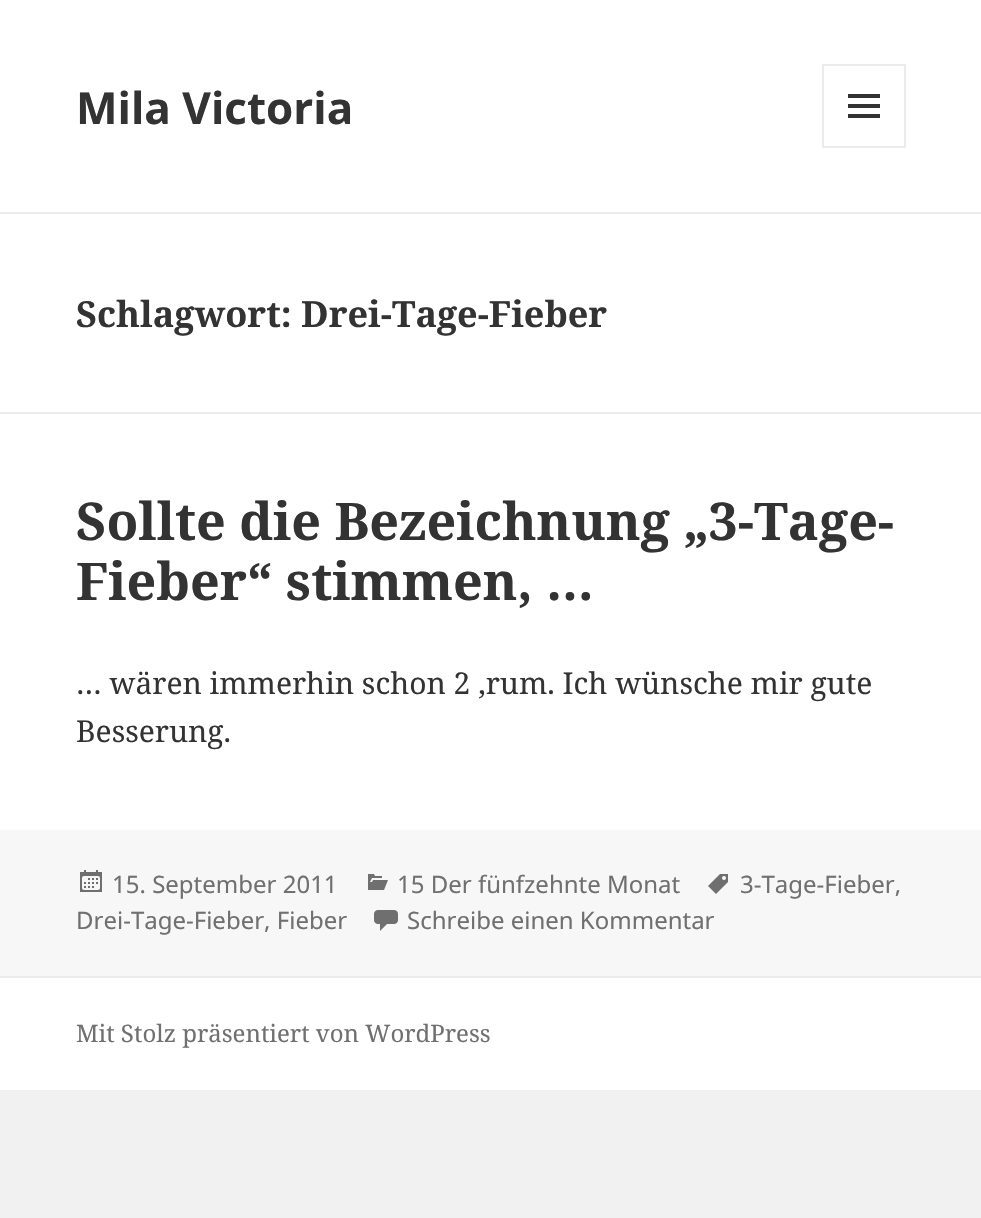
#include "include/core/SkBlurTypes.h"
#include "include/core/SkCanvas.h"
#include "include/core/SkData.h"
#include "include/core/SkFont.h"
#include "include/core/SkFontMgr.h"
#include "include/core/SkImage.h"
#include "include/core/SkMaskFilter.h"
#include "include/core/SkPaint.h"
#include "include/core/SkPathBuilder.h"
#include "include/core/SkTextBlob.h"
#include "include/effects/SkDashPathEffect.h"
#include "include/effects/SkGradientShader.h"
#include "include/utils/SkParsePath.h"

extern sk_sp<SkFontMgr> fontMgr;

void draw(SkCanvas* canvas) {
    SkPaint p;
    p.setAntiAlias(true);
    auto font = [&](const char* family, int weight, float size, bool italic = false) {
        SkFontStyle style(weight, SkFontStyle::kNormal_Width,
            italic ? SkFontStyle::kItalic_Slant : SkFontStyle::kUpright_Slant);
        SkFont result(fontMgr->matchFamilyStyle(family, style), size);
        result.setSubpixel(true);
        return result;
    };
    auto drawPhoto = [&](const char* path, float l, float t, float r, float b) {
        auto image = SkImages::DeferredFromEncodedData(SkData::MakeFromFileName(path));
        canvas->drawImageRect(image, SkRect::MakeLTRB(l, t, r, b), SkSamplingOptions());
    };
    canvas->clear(0xFFF1F1F1);
    p.setColor(0xFFFFFFFF);
    canvas->drawRect(SkRect::MakeLTRB(0, 0, 981, 212), p);
    p.setColor(0xFFEBEBEB);
    canvas->drawRect(SkRect::MakeLTRB(0, 212, 981, 214), p);
    auto font1 = font("Noto Sans", 700, 44);
    p.setColor(0xFF333333);
    canvas->drawString("Mila Victoria", 76, 124, font1, p);
    p.setStyle(SkPaint::kStroke_Style);
    p.setStrokeWidth(2);
    p.setColor(0xFFEBEBEB);
    canvas->drawRect(SkRect::MakeLTRB(823, 65, 905, 147), p);
    drawPhoto("media/1.png", 848, 94, 880, 118);
    p.setStyle(SkPaint::kFill_Style);
    p.setColor(0xFFFFFFFF);
    canvas->drawRect(SkRect::MakeLTRB(0, 214, 981, 412), p);
    p.setColor(0xFFEBEBEB);
    canvas->drawRect(SkRect::MakeLTRB(0, 412, 981, 414), p);
    auto font2 = font("Noto Serif", 700, 36);
    p.setColor(0xFF333333);
    canvas->drawString("Schlagwort: Drei-Tage-Fieber", 76, 327, font2, p);
    p.setColor(0xFFFFFFFF);
    canvas->drawRect(SkRect::MakeLTRB(0, 414, 981, 830), p);
    auto font3 = font("Noto Serif", 700, 52);
    p.setColor(0xFF333333);
    canvas->drawString("Sollte die Bezeichnung „3-Tage-", 76, 540, font3, p);
    canvas->drawString("Fieber“ stimmen, …", 76, 600, font3, p);
    auto font4 = font("Noto Serif", 400, 30);
    canvas->drawString("… wären immerhin schon 2 ‚rum. Ich wünsche mir gute", 76, 694, font4, p);
    canvas->drawString("Besserung.", 76, 742, font4, p);
    p.setColor(0xFFF7F7F7);
    canvas->drawRect(SkRect::MakeLTRB(0, 830, 981, 976), p);
    drawPhoto("media/2.png", 708, 874, 728, 894);
    auto font5 = font("Noto Sans", 400, 24);
    p.setColor(0xFF707070);
    canvas->drawString("3-Tage-Fieber,", 740, 893, font5, p);
    canvas->drawString("Drei-Tage-Fieber, Fieber", 76, 929, font5, p);
    drawPhoto("media/3.png", 80, 870, 102, 892);
    canvas->drawString("15. September 2011", 112, 893, font5, p);
    drawPhoto("media/4.png", 368, 874, 388, 890);
    canvas->drawString("15 Der fünfzehnte Monat", 397, 893, font5, p);
    drawPhoto("media/5.png", 374, 910, 398, 931);
    canvas->drawString("Schreibe einen Kommentar", 407, 929, font5, p);
    p.setColor(0xFFFFFFFF);
    canvas->drawRect(SkRect::MakeLTRB(0, 978, 981, 1090), p);
    p.setColor(0xFFEBEBEB);
    canvas->drawRect(SkRect::MakeLTRB(0, 976, 981, 978), p);
    auto font6 = font("Noto Serif", 400, 24);
    p.setColor(0xFF707070);
    canvas->drawString("Mit Stolz präsentiert von WordPress", 76, 1042, font6, p);
}
